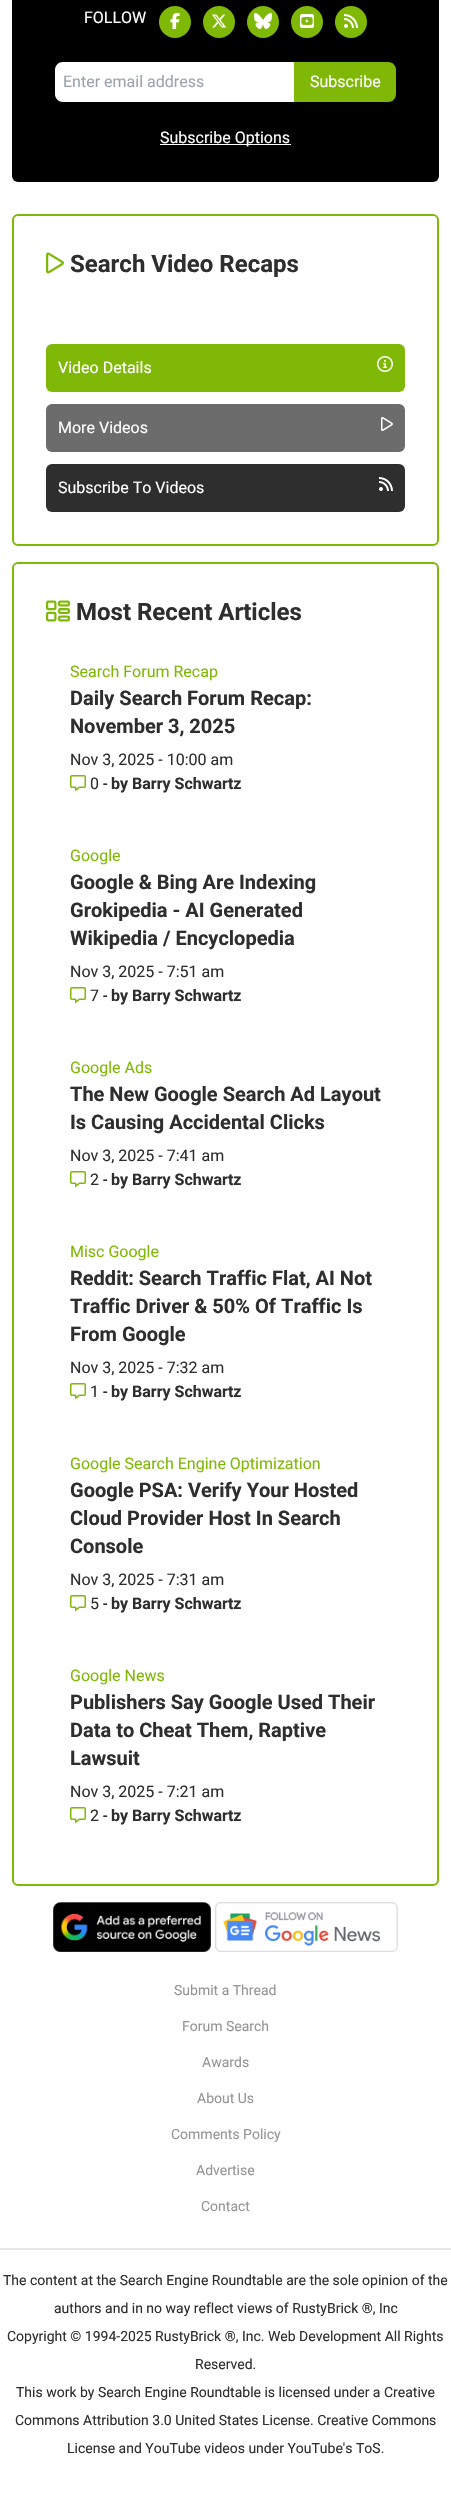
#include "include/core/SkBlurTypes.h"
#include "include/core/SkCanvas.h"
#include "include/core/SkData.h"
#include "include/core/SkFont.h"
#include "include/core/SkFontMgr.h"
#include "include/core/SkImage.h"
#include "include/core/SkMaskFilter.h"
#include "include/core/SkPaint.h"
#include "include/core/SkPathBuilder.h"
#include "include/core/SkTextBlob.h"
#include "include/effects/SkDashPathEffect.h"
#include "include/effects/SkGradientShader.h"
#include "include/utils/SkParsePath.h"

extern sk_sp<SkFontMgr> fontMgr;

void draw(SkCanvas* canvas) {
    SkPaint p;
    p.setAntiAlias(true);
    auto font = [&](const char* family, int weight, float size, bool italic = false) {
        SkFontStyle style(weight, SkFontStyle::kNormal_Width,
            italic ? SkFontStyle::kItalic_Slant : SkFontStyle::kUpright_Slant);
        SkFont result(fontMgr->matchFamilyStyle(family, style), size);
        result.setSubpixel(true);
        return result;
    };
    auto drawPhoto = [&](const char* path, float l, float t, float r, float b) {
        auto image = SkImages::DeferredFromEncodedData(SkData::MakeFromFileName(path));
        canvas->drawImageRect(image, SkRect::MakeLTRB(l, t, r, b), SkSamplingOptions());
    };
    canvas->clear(0xFFFFFFFF);
    p.setColor(0xFF000000);
    canvas->drawRoundRect(SkRect::MakeLTRB(12, -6, 439, 182), 6, 6, p);
    auto font1 = font("Roboto", 400, 16);
    p.setColor(0xFFFFFFFF);
    canvas->drawString("FOLLOW", 84, 23, font1, p);
    p.setColor(0xFF7FB806);
    canvas->drawCircle(175, 22, 16, p);
    drawPhoto("media/1.png", 170, 13, 180, 29);
    canvas->drawCircle(219, 22, 16, p);
    drawPhoto("media/2.png", 212, 14, 227, 28);
    canvas->drawCircle(263, 22, 16, p);
    drawPhoto("media/3.png", 254, 13, 272, 29);
    canvas->drawCircle(307, 22, 16, p);
    drawPhoto("media/4.png", 300, 14, 314, 28);
    canvas->drawCircle(351, 22, 16, p);
    drawPhoto("media/5.png", 344, 14, 358, 28);
    p.setColor(0xFFFFFFFF);
    canvas->drawPath(SkPathBuilder().moveTo(63, 62).lineTo(294, 62).lineTo(294, 102).lineTo(63, 102).cubicTo(58.5f, 102, 55, 98.5f, 55, 94).lineTo(55, 70).cubicTo(55, 65.5f, 58.5f, 62, 63, 62).close().detach(), p);
    p.setColor(0xFF9CA3AF);
    canvas->drawString("Enter email address", 63, 87, font1, p);
    p.setColor(0xFF7FB806);
    canvas->drawPath(SkPathBuilder().moveTo(294, 62).lineTo(388, 62).cubicTo(392.5f, 62, 396, 65.5f, 396, 70).lineTo(396, 94).cubicTo(396, 98.5f, 392.5f, 102, 388, 102).lineTo(294, 102).close().detach(), p);
    p.setColor(0xFFFFFFFF);
    canvas->drawString("Subscribe", 310, 87, font1, p);
    canvas->drawRect(SkRect::MakeLTRB(160, 144, 291, 145), p);
    canvas->drawString("Subscribe Options", 160, 143, font1, p);
    p.setStyle(SkPaint::kStroke_Style);
    p.setStrokeWidth(2);
    p.setColor(0xFF7FB806);
    canvas->drawRoundRect(SkRect::MakeLTRB(13, 215, 438, 545), 5, 5, p);
    drawPhoto("media/6.png", 46, 252, 64, 274);
    auto font2 = font("Roboto", 700, 24);
    p.setStyle(SkPaint::kFill_Style);
    p.setColor(0xFF2E2E2E);
    canvas->drawString("Search Video Recaps", 70, 272, font2, p);
    p.setColor(0xFF7FB806);
    canvas->drawRoundRect(SkRect::MakeLTRB(46, 344, 405, 392), 6, 6, p);
    p.setColor(0xFFFFFFFF);
    canvas->drawString("Video Details", 58, 373, font1, p);
    drawPhoto("media/7.png", 377, 356, 393, 372);
    p.setColor(0xFF6C6C6C);
    canvas->drawRoundRect(SkRect::MakeLTRB(46, 404, 405, 452), 6, 6, p);
    p.setColor(0xFFFFFFFF);
    canvas->drawString("More Videos", 58, 433, font1, p);
    drawPhoto("media/8.png", 381, 417, 393, 431);
    p.setColor(0xFF2E2E2E);
    canvas->drawRoundRect(SkRect::MakeLTRB(46, 464, 405, 512), 6, 6, p);
    p.setColor(0xFFFFFFFF);
    canvas->drawString("Subscribe To Videos", 58, 493, font1, p);
    drawPhoto("media/9.png", 379, 477, 393, 491);
    p.setStyle(SkPaint::kStroke_Style);
    p.setColor(0xFF7FB806);
    canvas->drawRoundRect(SkRect::MakeLTRB(13, 563, 438, 1885), 5, 5, p);
    drawPhoto("media/10.png", 46, 600, 70, 622);
    p.setStyle(SkPaint::kFill_Style);
    p.setColor(0xFF2E2E2E);
    canvas->drawString("Most Recent Articles", 76, 620, font2, p);
    p.setColor(0xFF7FB806);
    canvas->drawString("Search Forum Recap", 70, 677, font1, p);
    auto font3 = font("Roboto", 700, 20);
    p.setColor(0xFF2E2E2E);
    canvas->drawString("Daily Search Forum Recap:", 70, 705, font3, p);
    canvas->drawString("November 3, 2025", 70, 733, font3, p);
    canvas->drawString("Nov 3, 2025 - 10:00 am", 70, 765, font1, p);
    drawPhoto("media/11.png", 70, 775, 86, 791);
    canvas->drawString("0", 90, 789, font1, p);
    p.setColor(0xFF000000);
    canvas->drawString("-", 103, 789, font1, p);
    auto font4 = font("Roboto", 700, 16);
    p.setColor(0xFF2E2E2E);
    canvas->drawString("by Barry Schwartz", 111, 789, font4, p);
    p.setColor(0xFF7FB806);
    canvas->drawString("Google", 70, 861, font1, p);
    p.setColor(0xFF2E2E2E);
    {
        const struct { const char* s; float x, y; } items[] = {
            {"Google & Bing Are Indexing", 70, 889},
            {"Grokipedia - AI Generated", 70, 917},
            {"Wikipedia / Encyclopedia", 70, 945},
        };
        for (auto [s, x, y] : items) {
            canvas->drawString(s, x, y, font3, p);
        }
    }
    canvas->drawString("Nov 3, 2025 - 7:51 am", 70, 977, font1, p);
    drawPhoto("media/11.png", 70, 987, 86, 1003);
    canvas->drawString("7", 90, 1001, font1, p);
    p.setColor(0xFF000000);
    canvas->drawString("-", 103, 1001, font1, p);
    p.setColor(0xFF2E2E2E);
    canvas->drawString("by Barry Schwartz", 111, 1001, font4, p);
    p.setColor(0xFF7FB806);
    canvas->drawString("Google Ads", 70, 1073, font1, p);
    p.setColor(0xFF2E2E2E);
    canvas->drawString("The New Google Search Ad Layout", 70, 1101, font3, p);
    canvas->drawString("Is Causing Accidental Clicks", 70, 1129, font3, p);
    canvas->drawString("Nov 3, 2025 - 7:41 am", 70, 1161, font1, p);
    drawPhoto("media/11.png", 70, 1171, 86, 1187);
    canvas->drawString("2", 90, 1185, font1, p);
    p.setColor(0xFF000000);
    canvas->drawString("-", 103, 1185, font1, p);
    p.setColor(0xFF2E2E2E);
    canvas->drawString("by Barry Schwartz", 111, 1185, font4, p);
    p.setColor(0xFF7FB806);
    canvas->drawString("Misc Google", 70, 1257, font1, p);
    p.setColor(0xFF2E2E2E);
    {
        const struct { const char* s; float x, y; } items[] = {
            {"Reddit: Search Traffic Flat, AI Not", 70, 1285},
            {"Traffic Driver & 50% Of Traffic Is", 70, 1313},
            {"From Google", 70, 1341},
        };
        for (auto [s, x, y] : items) {
            canvas->drawString(s, x, y, font3, p);
        }
    }
    canvas->drawString("Nov 3, 2025 - 7:32 am", 70, 1373, font1, p);
    drawPhoto("media/11.png", 70, 1383, 86, 1399);
    canvas->drawString("1", 90, 1397, font1, p);
    p.setColor(0xFF000000);
    canvas->drawString("-", 103, 1397, font1, p);
    p.setColor(0xFF2E2E2E);
    canvas->drawString("by Barry Schwartz", 111, 1397, font4, p);
    p.setColor(0xFF7FB806);
    canvas->drawString("Google Search Engine Optimization", 70, 1469, font1, p);
    p.setColor(0xFF2E2E2E);
    {
        const struct { const char* s; float x, y; } items[] = {
            {"Google PSA: Verify Your Hosted", 70, 1497},
            {"Cloud Provider Host In Search", 70, 1525},
            {"Console", 70, 1553},
        };
        for (auto [s, x, y] : items) {
            canvas->drawString(s, x, y, font3, p);
        }
    }
    canvas->drawString("Nov 3, 2025 - 7:31 am", 70, 1585, font1, p);
    drawPhoto("media/11.png", 70, 1595, 86, 1611);
    canvas->drawString("5", 90, 1609, font1, p);
    p.setColor(0xFF000000);
    canvas->drawString("-", 103, 1609, font1, p);
    p.setColor(0xFF2E2E2E);
    canvas->drawString("by Barry Schwartz", 111, 1609, font4, p);
    p.setColor(0xFF7FB806);
    canvas->drawString("Google News", 70, 1681, font1, p);
    p.setColor(0xFF2E2E2E);
    {
        const struct { const char* s; float x, y; } items[] = {
            {"Publishers Say Google Used Their", 70, 1709},
            {"Data to Cheat Them, Raptive", 70, 1737},
            {"Lawsuit", 70, 1765},
        };
        for (auto [s, x, y] : items) {
            canvas->drawString(s, x, y, font3, p);
        }
    }
    canvas->drawString("Nov 3, 2025 - 7:21 am", 70, 1797, font1, p);
    drawPhoto("media/11.png", 70, 1807, 86, 1823);
    canvas->drawString("2", 90, 1821, font1, p);
    p.setColor(0xFF000000);
    canvas->drawString("-", 103, 1821, font1, p);
    p.setColor(0xFF2E2E2E);
    canvas->drawString("by Barry Schwartz", 111, 1821, font4, p);
    drawPhoto("media/12.png", 53, 1902, 211, 1952);
    drawPhoto("media/13.png", 215, 1902, 398, 1952);
    p.setColor(0xFFE5E7EB);
    canvas->drawRect(SkRect::MakeLTRB(0, 2248, 451, 2250), p);
    auto font5 = font("Roboto", 400, 14);
    p.setColor(0xFF959595);
    {
        const struct { const char* s; float x, y; } items[] = {
            {"Submit a Thread", 174, 1995},
            {"Forum Search", 182, 2031},
            {"Awards", 202, 2067},
            {"About Us", 197, 2103},
            {"Comments Policy", 171, 2139},
            {"Advertise", 196, 2175},
            {"Contact", 201, 2211},
        };
        for (auto [s, x, y] : items) {
            canvas->drawString(s, x, y, font5, p);
        }
    }
    p.setColor(0xFF2E2E2E);
    {
        const struct { const char* s; float x, y; } items[] = {
            {"The content at the Search Engine Roundtable are the sole opinion of the", 3, 2285},
            {"authors and in no way reflect views of RustyBrick ®, Inc", 54, 2313},
            {"Copyright © 1994-2025 RustyBrick ®, Inc. Web Development All Rights", 7, 2341},
            {"Reserved.", 195, 2369},
            {"This work by Search Engine Roundtable is licensed under a Creative", 16, 2397},
            {"Commons Attribution 3.0 United States License. Creative Commons", 15, 2425},
            {"License and YouTube videos under YouTube's ToS.", 67, 2453},
        };
        for (auto [s, x, y] : items) {
            canvas->drawString(s, x, y, font5, p);
        }
    }
}
